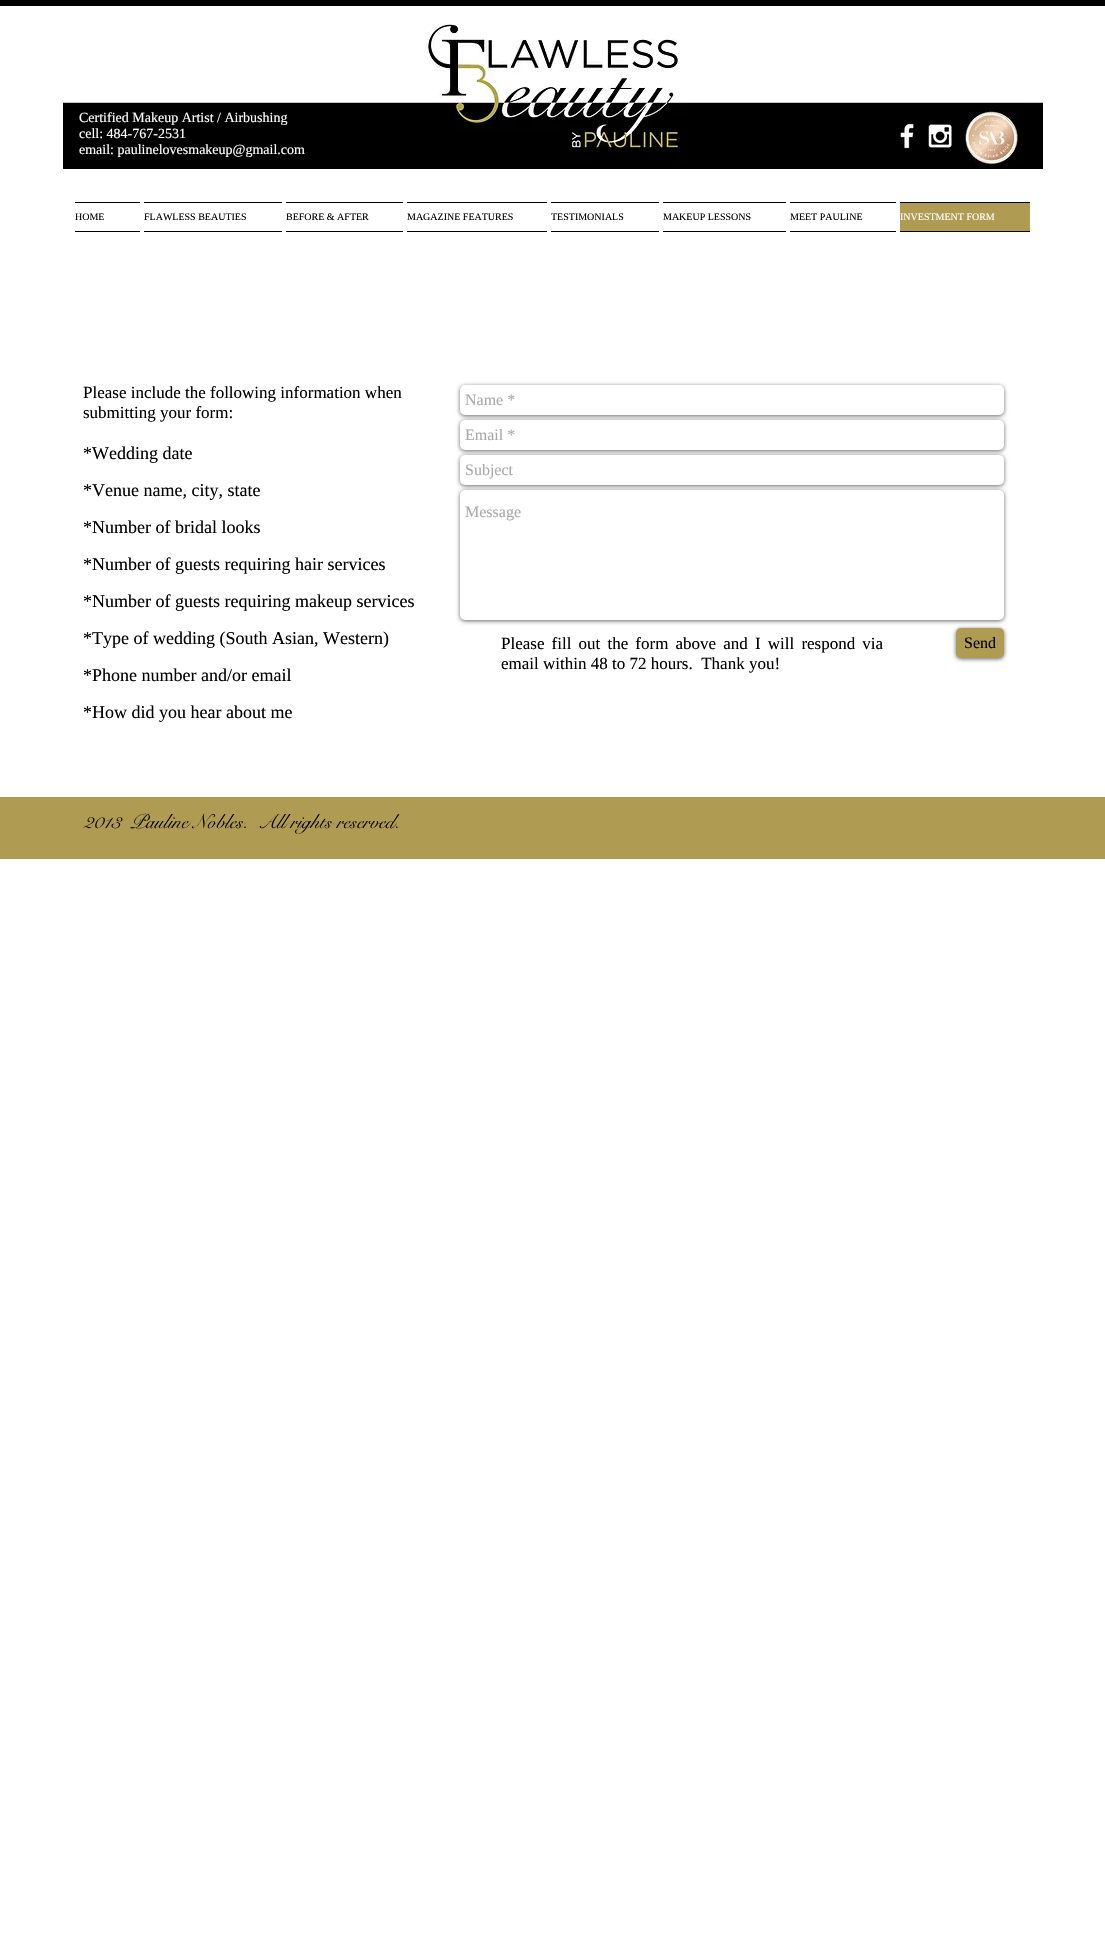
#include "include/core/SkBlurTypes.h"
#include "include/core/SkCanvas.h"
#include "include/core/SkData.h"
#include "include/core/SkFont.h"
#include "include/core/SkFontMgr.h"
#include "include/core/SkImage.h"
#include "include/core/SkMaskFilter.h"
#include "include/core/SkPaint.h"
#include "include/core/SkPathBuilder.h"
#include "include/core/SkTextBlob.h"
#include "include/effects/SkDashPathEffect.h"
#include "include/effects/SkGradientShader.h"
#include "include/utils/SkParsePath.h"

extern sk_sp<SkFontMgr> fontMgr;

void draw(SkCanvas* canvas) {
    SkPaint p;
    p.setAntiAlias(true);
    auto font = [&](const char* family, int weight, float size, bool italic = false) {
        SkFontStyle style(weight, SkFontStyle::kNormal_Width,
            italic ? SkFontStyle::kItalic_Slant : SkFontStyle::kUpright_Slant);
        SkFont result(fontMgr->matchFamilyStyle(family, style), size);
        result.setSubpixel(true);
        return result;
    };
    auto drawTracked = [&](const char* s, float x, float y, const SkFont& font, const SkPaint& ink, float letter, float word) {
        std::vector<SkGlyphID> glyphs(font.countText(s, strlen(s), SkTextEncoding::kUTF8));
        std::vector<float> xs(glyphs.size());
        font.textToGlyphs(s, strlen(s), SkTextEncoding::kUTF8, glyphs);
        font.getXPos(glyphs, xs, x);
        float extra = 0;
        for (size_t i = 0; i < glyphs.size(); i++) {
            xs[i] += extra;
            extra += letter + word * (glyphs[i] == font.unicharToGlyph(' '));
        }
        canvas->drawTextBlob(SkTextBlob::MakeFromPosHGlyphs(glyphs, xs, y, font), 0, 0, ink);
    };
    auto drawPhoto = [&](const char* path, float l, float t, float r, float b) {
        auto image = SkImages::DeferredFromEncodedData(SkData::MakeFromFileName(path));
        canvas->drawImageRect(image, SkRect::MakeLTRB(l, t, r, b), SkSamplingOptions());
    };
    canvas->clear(0xFFFFFFFF);
    p.setColor(0xFF000000);
    canvas->drawRect(SkRect::MakeLTRB(0, 0, 1105, 6), p);
    drawPhoto("media/1.png", 63, 23, 1043, 169);
    auto font1 = font("Liberation Serif", 400, 14);
    p.setColor(0xFFFFFFFF);
    {
        const struct { const char* s; float x, y; } items[] = {
            {"Certified Makeup Artist / Airbushing", 79, 122},
            {"cell: 484-767-2531", 79, 138},
            {"email: paulinelovesmakeup@gmail.com", 79, 154},
        };
        for (auto [s, x, y] : items) {
            canvas->drawString(s, x, y, font1, p);
        }
    }
    drawPhoto("media/2.png", 900, 123, 914, 149);
    drawPhoto("media/3.png", 928, 124, 952, 148);
    p.setColor(0xFF000000);
    canvas->drawRect(SkRect::MakeLTRB(75, 202, 140, 203), p);
    canvas->drawRect(SkRect::MakeLTRB(75, 231, 140, 232), p);
    auto font2 = font("Liberation Serif", 400, 10);
    canvas->drawString("HOME", 75, 220, font2, p);
    canvas->drawRect(SkRect::MakeLTRB(144, 202, 282, 203), p);
    canvas->drawRect(SkRect::MakeLTRB(144, 231, 282, 232), p);
    canvas->drawString("FLAWLESS BEAUTIES", 144, 220, font2, p);
    canvas->drawRect(SkRect::MakeLTRB(286, 202, 403, 203), p);
    canvas->drawRect(SkRect::MakeLTRB(286, 231, 403, 232), p);
    canvas->drawString("BEFORE & AFTER", 286, 220, font2, p);
    canvas->drawRect(SkRect::MakeLTRB(407, 202, 547, 203), p);
    canvas->drawRect(SkRect::MakeLTRB(407, 231, 547, 232), p);
    canvas->drawString("MAGAZINE FEATURES", 407, 220, font2, p);
    canvas->drawRect(SkRect::MakeLTRB(551, 202, 659, 203), p);
    canvas->drawRect(SkRect::MakeLTRB(551, 231, 659, 232), p);
    canvas->drawString("TESTIMONIALS", 551, 220, font2, p);
    canvas->drawRect(SkRect::MakeLTRB(663, 202, 786, 203), p);
    canvas->drawRect(SkRect::MakeLTRB(663, 231, 786, 232), p);
    canvas->drawString("MAKEUP LESSONS", 663, 220, font2, p);
    canvas->drawRect(SkRect::MakeLTRB(790, 202, 896, 203), p);
    canvas->drawRect(SkRect::MakeLTRB(790, 231, 896, 232), p);
    canvas->drawString("MEET PAULINE", 790, 220, font2, p);
    {
        const struct { float l, t, r, b; SkColor color; } items[] = {
            {900, 203, 1030, 231, 0xFFAF9B52},
            {900, 202, 1030, 203, 0xFF000000},
            {900, 231, 1030, 232, 0xFF000000},
        };
        for (auto [l, t, r, b, color] : items) {
            p.setColor(color);
            canvas->drawRect(SkRect::MakeLTRB(l, t, r, b), p);
        }
    }
    p.setColor(0xFFFFFFFF);
    canvas->drawString("INVESTMENT FORM", 900, 220, font2, p);
    auto font3 = font("Liberation Serif", 400, 17);
    p.setColor(0xFF000000);
    canvas->drawString("Please include the following information when", 83, 398, font3, p);
    canvas->drawString("submitting your form:", 83, 418, font3, p);
    auto font4 = font("Liberation Serif", 400, 18);
    {
        const struct { const char* s; float x, y; } items[] = {
            {"*Wedding date", 83, 459},
            {"*Venue name, city, state", 83, 496},
            {"*Number of bridal looks", 83, 533},
            {"*Number of guests requiring hair services", 83, 570},
            {"*Number of guests requiring makeup services", 83, 607},
            {"*Type of wedding (South Asian, Western)", 83, 644},
            {"*Phone number and/or email", 83, 681},
            {"*How did you hear about me", 83, 718},
        };
        for (auto [s, x, y] : items) {
            canvas->drawString(s, x, y, font4, p);
        }
    }
    p.setColor(0x99000000);
    p.setMaskFilter(SkMaskFilter::MakeBlur(kNormal_SkBlurStyle, 2));
    canvas->drawRoundRect(SkRect::MakeLTRB(460, 386, 1004, 416), 5, 5, p);
    p.setMaskFilter(nullptr);
    p.setColor(0xFFFFFFFF);
    canvas->drawRoundRect(SkRect::MakeLTRB(460, 385, 1004, 415), 5, 5, p);
    auto font5 = font("Liberation Serif", 400, 16);
    p.setColor(0xFFA9A9A9);
    canvas->drawString("Name *", 465, 405, font5, p);
    p.setColor(0x99000000);
    p.setMaskFilter(SkMaskFilter::MakeBlur(kNormal_SkBlurStyle, 2));
    canvas->drawRoundRect(SkRect::MakeLTRB(460, 421, 1004, 451), 5, 5, p);
    p.setMaskFilter(nullptr);
    p.setColor(0xFFFFFFFF);
    canvas->drawRoundRect(SkRect::MakeLTRB(460, 420, 1004, 450), 5, 5, p);
    p.setColor(0xFFA9A9A9);
    canvas->drawString("Email *", 465, 440, font5, p);
    p.setColor(0x99000000);
    p.setMaskFilter(SkMaskFilter::MakeBlur(kNormal_SkBlurStyle, 2));
    canvas->drawRoundRect(SkRect::MakeLTRB(460, 456, 1004, 486), 5, 5, p);
    p.setMaskFilter(nullptr);
    p.setColor(0xFFFFFFFF);
    canvas->drawRoundRect(SkRect::MakeLTRB(460, 455, 1004, 485), 5, 5, p);
    p.setColor(0xFFA9A9A9);
    canvas->drawString("Subject", 465, 475, font5, p);
    p.setColor(0x99000000);
    p.setMaskFilter(SkMaskFilter::MakeBlur(kNormal_SkBlurStyle, 2));
    canvas->drawRoundRect(SkRect::MakeLTRB(460, 491, 1004, 621), 5, 5, p);
    p.setMaskFilter(nullptr);
    p.setColor(0xFFFFFFFF);
    canvas->drawRoundRect(SkRect::MakeLTRB(460, 490, 1004, 620), 5, 5, p);
    p.setColor(0xFFA9A9A9);
    canvas->drawString("Message", 465, 517, font5, p);
    p.setColor(0x99000000);
    p.setMaskFilter(SkMaskFilter::MakeBlur(kNormal_SkBlurStyle, 2));
    canvas->drawRoundRect(SkRect::MakeLTRB(956, 629, 1004, 659), 5, 5, p);
    p.setMaskFilter(nullptr);
    p.setColor(0xFFAF9B52);
    canvas->drawRoundRect(SkRect::MakeLTRB(956, 628, 1004, 658), 5, 5, p);
    p.setColor(0xFF000000);
    canvas->drawString("Send", 964, 648, font5, p);
    drawTracked("Please fill out the form above and I will respond via", 501, 649, font3, p, 0, 2.9f);
    canvas->drawString("email within 48 to 72 hours.  Thank you!", 501, 669, font3, p);
    p.setColor(0xFFAF9B52);
    canvas->drawRect(SkRect::MakeLTRB(0, 797, 1105, 859), p);
    auto font6 = font("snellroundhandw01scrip", 400, 20);
    p.setColor(0xFF000000);
    canvas->drawString("2013  Pauline Nobles.  All rights reserved.", 83, 828, font6, p);
}
